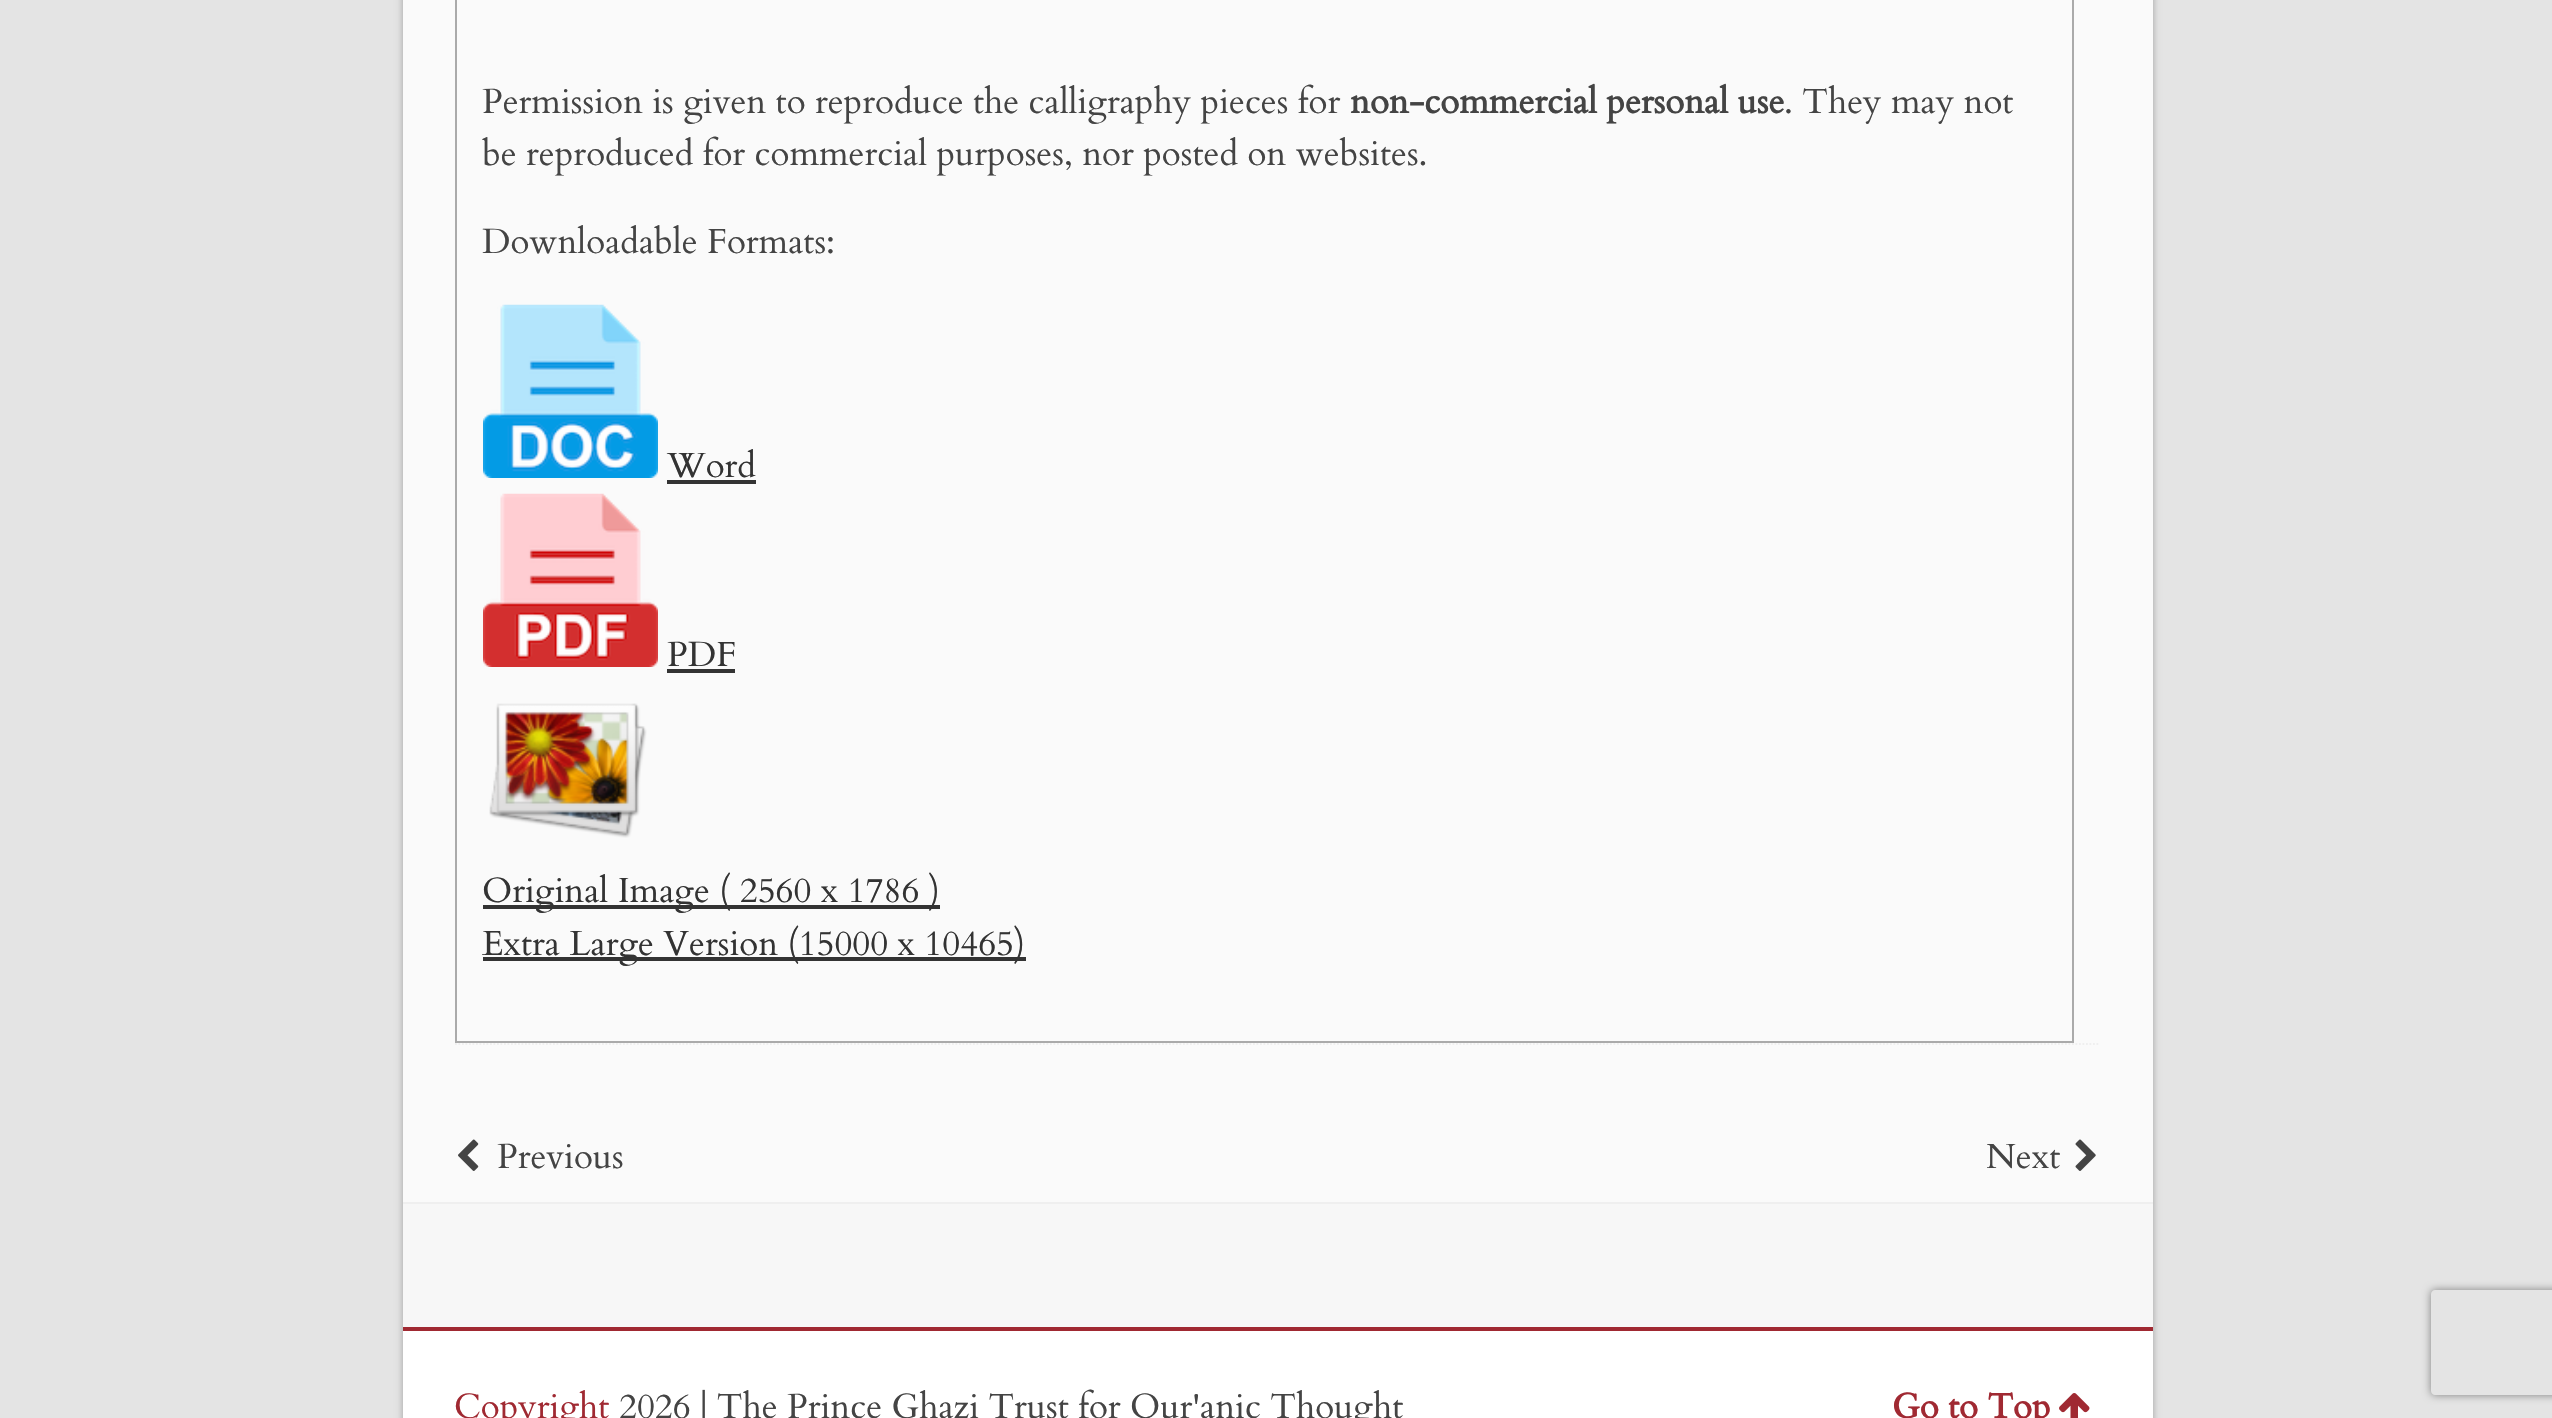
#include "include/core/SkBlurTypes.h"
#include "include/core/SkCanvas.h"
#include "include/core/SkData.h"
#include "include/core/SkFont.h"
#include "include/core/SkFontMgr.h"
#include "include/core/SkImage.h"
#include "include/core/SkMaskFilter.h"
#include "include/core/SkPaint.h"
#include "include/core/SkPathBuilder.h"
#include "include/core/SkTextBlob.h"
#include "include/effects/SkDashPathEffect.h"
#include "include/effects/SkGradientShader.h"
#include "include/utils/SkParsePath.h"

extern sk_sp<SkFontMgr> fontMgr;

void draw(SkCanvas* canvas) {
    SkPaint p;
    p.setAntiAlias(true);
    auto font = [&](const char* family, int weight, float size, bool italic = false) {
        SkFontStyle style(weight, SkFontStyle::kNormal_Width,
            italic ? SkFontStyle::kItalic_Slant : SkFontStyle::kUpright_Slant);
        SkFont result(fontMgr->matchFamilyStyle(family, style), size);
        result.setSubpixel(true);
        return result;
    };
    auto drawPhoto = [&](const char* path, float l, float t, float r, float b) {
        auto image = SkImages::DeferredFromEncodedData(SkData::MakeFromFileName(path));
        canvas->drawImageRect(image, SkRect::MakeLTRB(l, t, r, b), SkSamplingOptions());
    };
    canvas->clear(0xFFE4E4E4);
    p.setColor(0x4D000000);
    p.setMaskFilter(SkMaskFilter::MakeBlur(kNormal_SkBlurStyle, 3.5f));
    canvas->drawRect(SkRect::MakeLTRB(403, -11, 2153, 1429), p);
    p.setMaskFilter(nullptr);
    p.setColor(0xFFFAFAFA);
    canvas->drawRect(SkRect::MakeLTRB(403, 0, 2153, 1202), p);
    p.setStyle(SkPaint::kStroke_Style);
    p.setStrokeWidth(2);
    p.setColor(0xFFAAAAAA);
    canvas->drawRect(SkRect::MakeLTRB(456, -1, 2073, 1042), p);
    auto font1 = font("Cardo", 400, 35);
    p.setStyle(SkPaint::kFill_Style);
    p.setColor(0xFF444444);
    canvas->drawString("Permission is given to reproduce the calligraphy pieces for", 482, 113, font1, p);
    auto font2 = font("Cardo", 700, 35);
    canvas->drawString("non-commercial personal use", 1350, 113, font2, p);
    {
        const struct { const char* s; float x, y; } items[] = {
            {". They may not", 1784, 113},
            {"be reproduced for commercial purposes, nor posted on websites.", 482, 165},
            {"Downloadable Formats:", 482, 253},
        };
        for (auto [s, x, y] : items) {
            canvas->drawString(s, x, y, font1, p);
        }
    }
    drawPhoto("media/1.png", 483, 304, 658, 478);
    p.setColor(0xFF333333);
    canvas->drawString("Word", 667, 477, font1, p);
    canvas->drawRect(SkRect::MakeLTRB(667, 480, 756, 484), p);
    drawPhoto("media/2.png", 483, 493, 658, 667);
    canvas->drawString("PDF", 667, 666, font1, p);
    canvas->drawRect(SkRect::MakeLTRB(667, 669, 735, 673), p);
    drawPhoto("media/3.png", 489, 703, 647, 838);
    canvas->drawRect(SkRect::MakeLTRB(483, 905, 940, 909), p);
    canvas->drawString("Original Image ( 2560 x 1786 )", 482, 902, font1, p);
    canvas->drawRect(SkRect::MakeLTRB(483, 957, 1026, 961), p);
    canvas->drawString("Extra Large Version (15000 x 10465)", 482, 955, font1, p);
    p.setStyle(SkPaint::kStroke_Style);
    p.setStrokeWidth(1.8f);
    p.setColor(0xFFEFEFEF);
    p.setPathEffect(SkDashPathEffect::Make({{1.75f, 1.75f}}, 0));
    canvas->drawPath(SkPathBuilder().moveTo(455, 1044).lineTo(2100, 1044).detach(), p);
    p.setPathEffect(nullptr);
    drawPhoto("media/4.png", 458, 1139, 479, 1171);
    p.setStyle(SkPaint::kFill_Style);
    p.setColor(0xFF444444);
    canvas->drawString("Previous", 497, 1168, font1, p);
    canvas->drawString("Next", 1986, 1168, font1, p);
    drawPhoto("media/5.png", 2075, 1139, 2096, 1171);
    {
        const struct { float l, t, r, b; SkColor color; } items[] = {
            {403, 1204, 2153, 1327, 0xFFF7F7F7},
            {403, 1202, 2153, 1204, 0xFFEFEFEF},
            {403, 1331, 2153, 1418, 0xFFFFFFFF},
            {403, 1327, 2153, 1331, 0xFFA02932},
        };
        for (auto [l, t, r, b, color] : items) {
            p.setColor(color);
            canvas->drawRect(SkRect::MakeLTRB(l, t, r, b), p);
        }
    }
    canvas->drawString("Copyright", 454, 1418, font1, p);
    p.setColor(0xFF444444);
    canvas->drawString("2026 | The Prince Ghazi Trust for Qur'anic Thought", 619, 1418, font1, p);
    p.setColor(0xFFA02932);
    canvas->drawString("Go to Top", 1892, 1418, font2, p);
    drawPhoto("media/6.png", 2059, 1393, 2090, 1418);
    canvas->save();
    canvas->clipPath(SkPathBuilder(SkPathFillType::kEvenOdd).moveTo(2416, 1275).lineTo(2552, 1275).lineTo(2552, 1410).lineTo(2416, 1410).close().moveTo(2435, 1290).lineTo(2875, 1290).cubicTo(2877, 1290, 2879, 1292, 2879, 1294).lineTo(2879, 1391).cubicTo(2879, 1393, 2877, 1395, 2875, 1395).lineTo(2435, 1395).cubicTo(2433, 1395, 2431, 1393, 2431, 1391).lineTo(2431, 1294).cubicTo(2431, 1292, 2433, 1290, 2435, 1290).close().detach(), true);
    p.setColor(0xFF808080);
    p.setMaskFilter(SkMaskFilter::MakeBlur(kNormal_SkBlurStyle, 4.5f));
    canvas->drawRoundRect(SkRect::MakeLTRB(2431, 1290, 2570, 1395), 4, 4, p);
    p.setMaskFilter(nullptr);
    canvas->restore();
}
